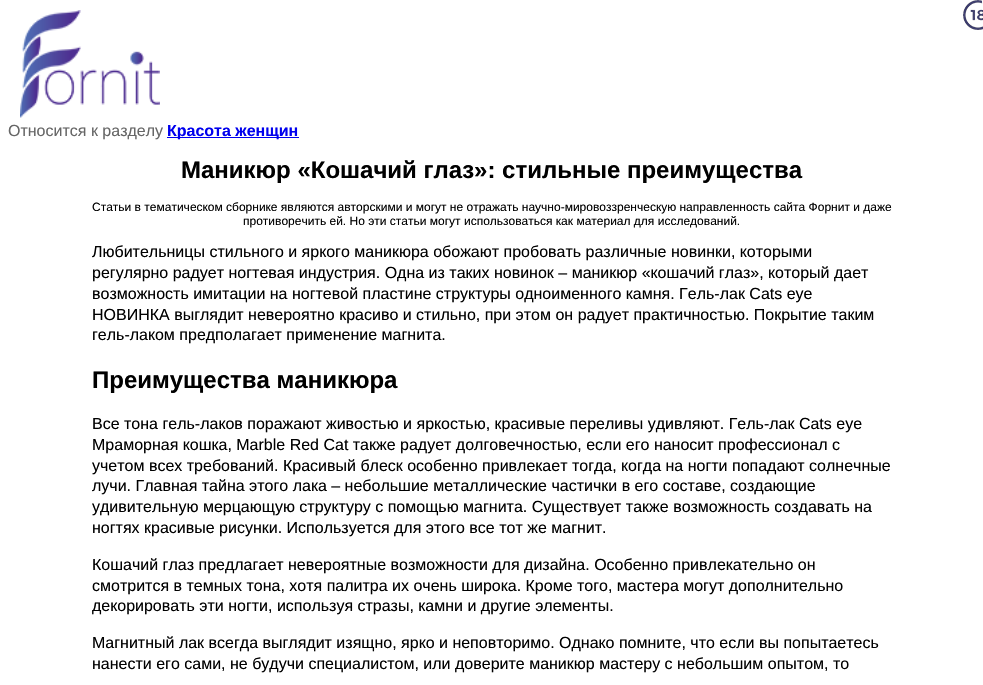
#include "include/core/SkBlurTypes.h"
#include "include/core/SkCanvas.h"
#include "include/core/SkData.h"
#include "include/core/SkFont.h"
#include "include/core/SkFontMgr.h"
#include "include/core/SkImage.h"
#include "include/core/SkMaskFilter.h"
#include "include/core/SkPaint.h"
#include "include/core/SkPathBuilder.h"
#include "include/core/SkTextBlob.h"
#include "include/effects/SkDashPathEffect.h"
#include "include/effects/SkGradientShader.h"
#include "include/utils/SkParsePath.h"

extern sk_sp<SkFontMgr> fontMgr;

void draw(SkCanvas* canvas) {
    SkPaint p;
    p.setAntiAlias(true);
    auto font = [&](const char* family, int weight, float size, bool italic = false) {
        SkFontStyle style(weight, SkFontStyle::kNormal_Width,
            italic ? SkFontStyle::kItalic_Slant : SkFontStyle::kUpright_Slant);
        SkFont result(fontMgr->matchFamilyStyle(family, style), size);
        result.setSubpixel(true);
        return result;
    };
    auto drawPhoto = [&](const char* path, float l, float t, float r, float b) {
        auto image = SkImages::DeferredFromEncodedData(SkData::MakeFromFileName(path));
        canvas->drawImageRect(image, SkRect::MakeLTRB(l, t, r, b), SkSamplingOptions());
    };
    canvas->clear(0xFFFFFFFF);
    drawPhoto("media/1.png", 20, 10, 160, 118);
    drawPhoto("media/2.png", 963, 0, 983, 30);
    auto font1 = font("Liberation Sans", 400, 16);
    p.setColor(0xFF666666);
    canvas->drawString("Относится к разделу", 8, 136, font1, p);
    p.setColor(0xFF0000EE);
    canvas->drawRect(SkRect::MakeLTRB(167, 137, 299, 138), p);
    auto font2 = font("Liberation Sans", 700, 16);
    canvas->drawString("Красота женщин", 167, 136, font2, p);
    auto font3 = font("Liberation Sans", 700, 24);
    p.setColor(0xFF000000);
    canvas->drawString("Маникюр «Кошачий глаз»: стильные преимущества", 181, 178, font3, p);
    auto font4 = font("Liberation Sans", 400, 12);
    canvas->drawString("Статьи в тематическом сборнике являются авторскими и могут не отражать научно-мировоззренческую направленность сайта Форнит и даже", 92, 211, font4, p);
    canvas->drawString("противоречить ей. Но эти статьи могут использоваться как материал для исследований.", 243, 225, font4, p);
    {
        const struct { const char* s; float x, y; } items[] = {
            {"Любительницы стильного и яркого маникюра обожают пробовать различные новинки, которыми", 92, 257},
            {"регулярно радует ногтевая индустрия. Одна из таких новинок – маникюр «кошачий глаз», который дает", 92, 278},
            {"возможность имитации на ногтевой пластине структуры одноименного камня. Гель-лак Cats eye", 92, 299},
            {"НОВИНКА выглядит невероятно красиво и стильно, при этом он радует практичностью. Покрытие таким", 92, 320},
            {"гель-лаком предполагает применение магнита.", 92, 340},
        };
        for (auto [s, x, y] : items) {
            canvas->drawString(s, x, y, font1, p);
        }
    }
    canvas->drawString("Преимущества маникюра", 92, 388, font3, p);
    {
        const struct { const char* s; float x, y; } items[] = {
            {"Все тона гель-лаков поражают живостью и яркостью, красивые переливы удивляют. Гель-лак Cats eye", 92, 429},
            {"Мраморная кошка, Marble Red Cat также радует долговечностью, если его наносит профессионал с", 92, 450},
            {"учетом всех требований. Красивый блеск особенно привлекает тогда, когда на ногти попадают солнечные", 92, 471},
            {"лучи. Главная тайна этого лака – небольшие металлические частички в его составе, создающие", 92, 491},
            {"удивительную мерцающую структуру с помощью магнита. Существует также возможность создавать на", 92, 512},
            {"ногтях красивые рисунки. Используется для этого все тот же магнит.", 92, 533},
            {"Кошачий глаз предлагает невероятные возможности для дизайна. Особенно привлекательно он", 92, 570},
            {"смотрится в темных тона, хотя палитра их очень широка. Кроме того, мастера могут дополнительно", 92, 591},
            {"декорировать эти ногти, используя стразы, камни и другие элементы.", 92, 611},
            {"Магнитный лак всегда выглядит изящно, ярко и неповторимо. Однако помните, что если вы попытаетесь", 92, 648},
            {"нанести его сами, не будучи специалистом, или доверите маникюр мастеру с небольшим опытом, то", 92, 669},
        };
        for (auto [s, x, y] : items) {
            canvas->drawString(s, x, y, font1, p);
        }
    }
}
